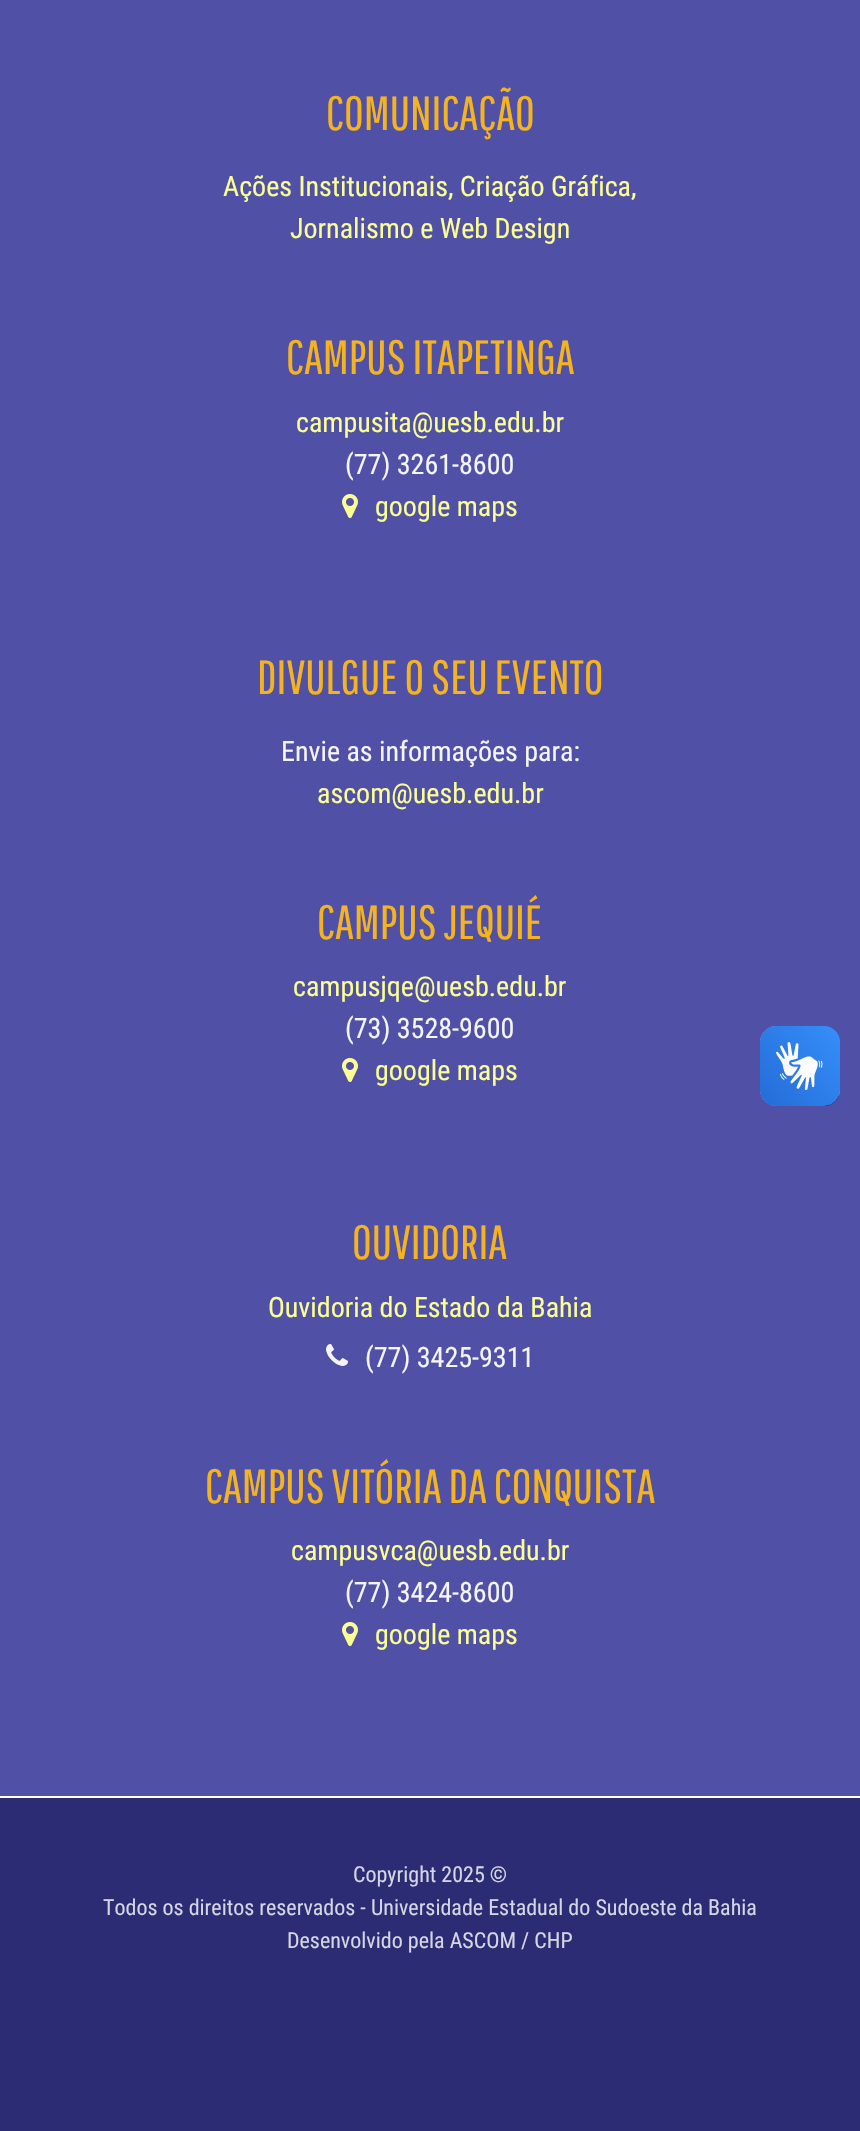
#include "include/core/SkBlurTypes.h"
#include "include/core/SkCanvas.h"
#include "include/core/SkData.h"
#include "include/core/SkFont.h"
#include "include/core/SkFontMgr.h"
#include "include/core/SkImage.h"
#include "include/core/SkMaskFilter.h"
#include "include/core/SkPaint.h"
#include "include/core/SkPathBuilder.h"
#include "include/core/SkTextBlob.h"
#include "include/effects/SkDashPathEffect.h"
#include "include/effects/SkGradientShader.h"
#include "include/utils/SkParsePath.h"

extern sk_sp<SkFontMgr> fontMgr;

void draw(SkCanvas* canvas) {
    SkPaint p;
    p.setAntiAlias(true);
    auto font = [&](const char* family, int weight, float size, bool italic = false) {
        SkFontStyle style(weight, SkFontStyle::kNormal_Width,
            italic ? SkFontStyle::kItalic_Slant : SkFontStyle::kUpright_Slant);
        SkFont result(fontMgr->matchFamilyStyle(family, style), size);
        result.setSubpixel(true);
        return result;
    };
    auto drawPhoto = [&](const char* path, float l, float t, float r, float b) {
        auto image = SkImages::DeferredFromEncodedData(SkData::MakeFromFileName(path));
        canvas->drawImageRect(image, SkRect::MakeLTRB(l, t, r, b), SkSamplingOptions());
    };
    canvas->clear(0xFF4F50A6);
    auto font1 = font("Pathway Gothic One", 400, 48);
    p.setColor(0xFFF4B321);
    canvas->drawString("COMUNICAÇÃO", 326, 130, font1, p);
    auto font2 = font("Roboto Condensed", 400, 28);
    p.setColor(0xFFFBFF93);
    canvas->drawString("Ações Institucionais, Criação Gráfica,", 223, 196, font2, p);
    canvas->drawString("Jornalismo e Web Design", 290, 238, font2, p);
    p.setColor(0xFFF4B321);
    canvas->drawString("CAMPUS ITAPETINGA", 286, 374, font1, p);
    p.setColor(0xFFFBFF93);
    canvas->drawString("campusita@uesb.edu.br", 296, 432, font2, p);
    p.setColor(0xFFF5F5F5);
    canvas->drawString("(77) 3261-8600", 345, 474, font2, p);
    drawPhoto("media/1.png", 342, 494, 358, 518);
    p.setColor(0xFFFBFF93);
    canvas->drawString("google maps", 375, 516, font2, p);
    p.setColor(0xFFF4B321);
    canvas->drawString("DIVULGUE O SEU EVENTO", 257, 694, font1, p);
    p.setColor(0xFFF5F5F5);
    canvas->drawString("Envie as informações para:", 281, 761, font2, p);
    p.setColor(0xFFFBFF93);
    canvas->drawString("ascom@uesb.edu.br", 317, 803, font2, p);
    p.setColor(0xFFF4B321);
    canvas->drawString("CAMPUS JEQUIÉ", 317, 939, font1, p);
    p.setColor(0xFFFBFF93);
    canvas->drawString("campusjqe@uesb.edu.br", 293, 996, font2, p);
    p.setColor(0xFFF5F5F5);
    canvas->drawString("(73) 3528-9600", 345, 1038, font2, p);
    drawPhoto("media/1.png", 342, 1058, 358, 1082);
    p.setColor(0xFFFBFF93);
    canvas->drawString("google maps", 375, 1080, font2, p);
    p.setColor(0xFFF4B321);
    canvas->drawString("OUVIDORIA", 352, 1259, font1, p);
    p.setColor(0xFFFBFF93);
    canvas->drawString("Ouvidoria do Estado da Bahia", 268, 1317, font2, p);
    drawPhoto("media/2.png", 326, 1344, 348, 1366);
    p.setColor(0xFFF5F5F5);
    canvas->drawString("(77) 3425-9311", 365, 1367, font2, p);
    p.setColor(0xFFF4B321);
    canvas->drawString("CAMPUS VITÓRIA DA CONQUISTA", 205, 1503, font1, p);
    p.setColor(0xFFFBFF93);
    canvas->drawString("campusvca@uesb.edu.br", 291, 1560, font2, p);
    p.setColor(0xFFF5F5F5);
    canvas->drawString("(77) 3424-8600", 345, 1602, font2, p);
    drawPhoto("media/1.png", 342, 1622, 358, 1646);
    p.setColor(0xFFFBFF93);
    canvas->drawString("google maps", 375, 1644, font2, p);
    p.setColor(0xFF2B2C74);
    canvas->drawRect(SkRect::MakeLTRB(0, 1798, 860, 2131), p);
    p.setColor(0xFFFFFFFF);
    canvas->drawRect(SkRect::MakeLTRB(0, 1796, 860, 1798), p);
    auto font3 = font("Roboto Condensed", 400, 22);
    p.setColor(0xFFD5D5E3);
    {
        const struct { const char* s; float x, y; } items[] = {
            {"Copyright 2025 ©", 353, 1882},
            {"Todos os direitos reservados - Universidade Estadual do Sudoeste da Bahia", 103, 1915},
            {"Desenvolvido pela ASCOM / CHP", 287, 1948},
        };
        for (auto [s, x, y] : items) {
            canvas->drawString(s, x, y, font3, p);
        }
    }
    drawPhoto("media/3.png", 760, 1026, 840, 1106);
    drawPhoto("media/4.png", 760, 1026, 840, 1106);
}
